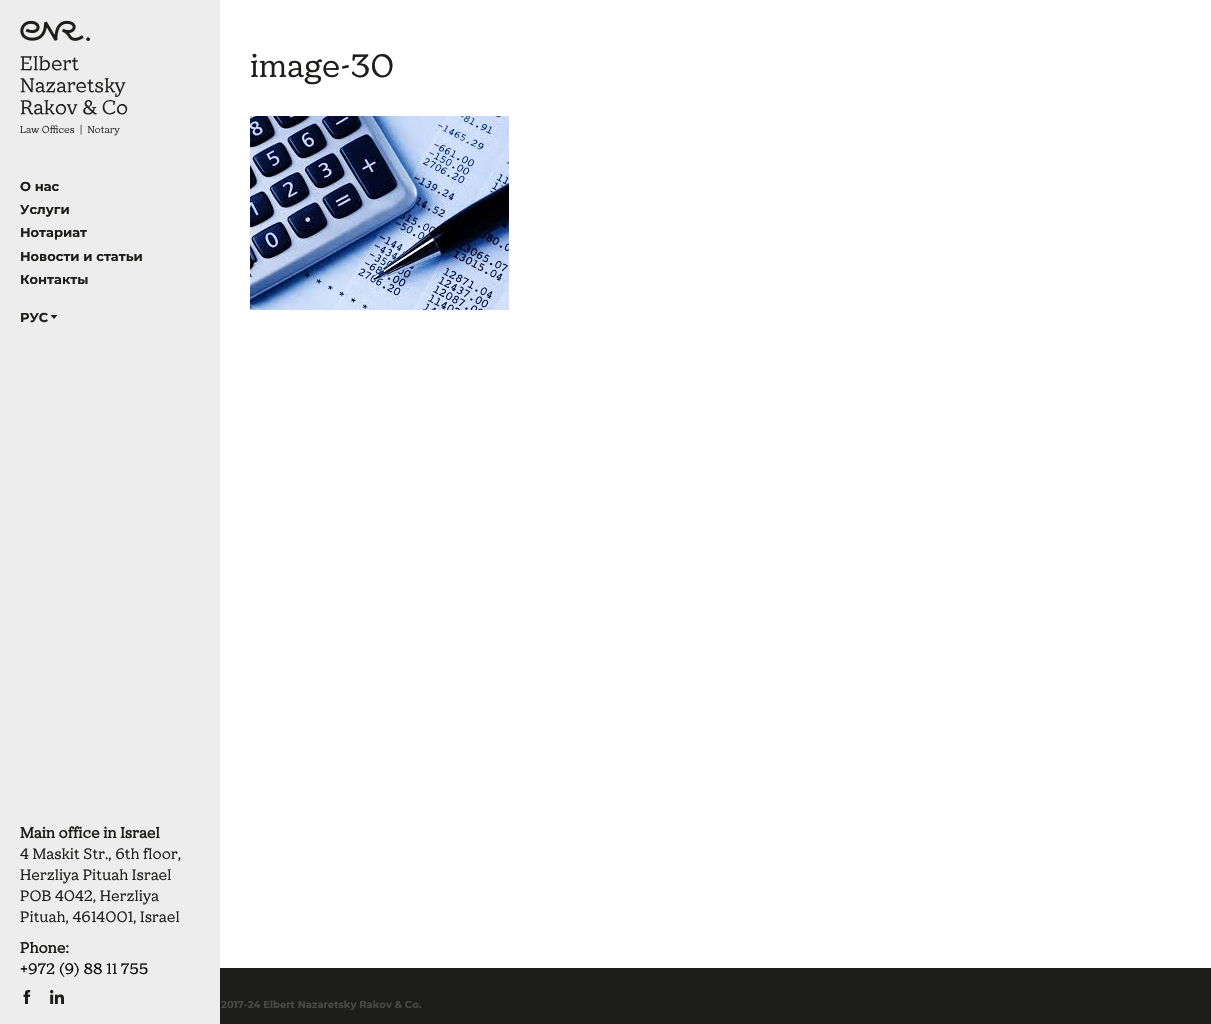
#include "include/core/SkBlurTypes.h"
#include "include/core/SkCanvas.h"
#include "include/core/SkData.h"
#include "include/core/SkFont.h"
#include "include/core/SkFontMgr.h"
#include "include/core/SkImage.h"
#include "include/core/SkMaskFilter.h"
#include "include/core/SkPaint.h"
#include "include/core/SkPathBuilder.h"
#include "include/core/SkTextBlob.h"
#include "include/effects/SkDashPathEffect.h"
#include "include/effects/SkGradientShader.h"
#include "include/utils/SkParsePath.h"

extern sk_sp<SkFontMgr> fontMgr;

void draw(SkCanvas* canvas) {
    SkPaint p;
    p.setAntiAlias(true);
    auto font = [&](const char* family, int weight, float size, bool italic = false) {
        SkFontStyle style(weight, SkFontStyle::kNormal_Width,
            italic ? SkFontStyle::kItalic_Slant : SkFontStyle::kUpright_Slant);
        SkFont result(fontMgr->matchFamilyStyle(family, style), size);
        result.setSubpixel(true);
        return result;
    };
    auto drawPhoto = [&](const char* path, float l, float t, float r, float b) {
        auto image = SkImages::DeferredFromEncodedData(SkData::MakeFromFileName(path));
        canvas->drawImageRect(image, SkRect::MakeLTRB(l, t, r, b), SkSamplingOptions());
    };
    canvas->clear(0xFFFFFFFF);
    auto font1 = font("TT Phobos", 400, 32);
    p.setColor(0xFF1D1D1B);
    canvas->drawString("image-30", 250, 77, font1, p);
    drawPhoto("media/1.png", 250, 116, 509, 310);
    p.setColor(0xFFEDEDED);
    canvas->drawRect(SkRect::MakeLTRB(0, 0, 220, 1024), p);
    drawPhoto("media/2.png", 20, 20, 90, 41);
    drawPhoto("media/3.png", 20, 56, 128, 136);
    auto font2 = font("Montserrat", 700, 13);
    p.setColor(0xFF1D1D1B);
    {
        const struct { const char* s; float x, y; } items[] = {
            {"О нас", 20, 191},
            {"Услуги", 20, 214},
            {"Нотариат", 20, 237},
            {"Новости и статьи", 20, 261},
            {"Контакты", 20, 284},
            {"РУС", 20, 322},
        };
        for (auto [s, x, y] : items) {
            canvas->drawString(s, x, y, font2, p);
        }
    }
    canvas->drawPath(SkPathBuilder().moveTo(54, 319).lineTo(50.5f, 315).lineTo(57.5f, 315).close().detach(), p);
    auto font3 = font("TT Phobos", 700, 15);
    canvas->drawString("Main office in Israel", 20, 838, font3, p);
    auto font4 = font("TT Phobos", 400, 15);
    {
        const struct { const char* s; float x, y; } items[] = {
            {"4 Maskit Str., 6th floor,", 20, 859},
            {"Herzliya Pituah Israel", 20, 880},
            {"POB 4042, Herzliya", 20, 901},
            {"Pituah, 4614001, Israel", 20, 922},
        };
        for (auto [s, x, y] : items) {
            canvas->drawString(s, x, y, font4, p);
        }
    }
    canvas->drawString("Phone:", 20, 953, font3, p);
    p.setColor(0xFF000000);
    canvas->drawString("+972 (9) 88 11 755", 20, 974, font4, p);
    drawPhoto("media/4.png", 23, 990, 31, 1004);
    drawPhoto("media/5.png", 50, 990, 64, 1004);
    p.setColor(0xFF1D1D1B);
    canvas->drawRect(SkRect::MakeLTRB(220, 968, 1211, 1024), p);
    auto font5 = font("Montserrat", 700, 10);
    p.setColor(0xFF494948);
    canvas->drawString("2017-24 Elbert Nazaretsky Rakov & Co.", 221, 1008, font5, p);
}
